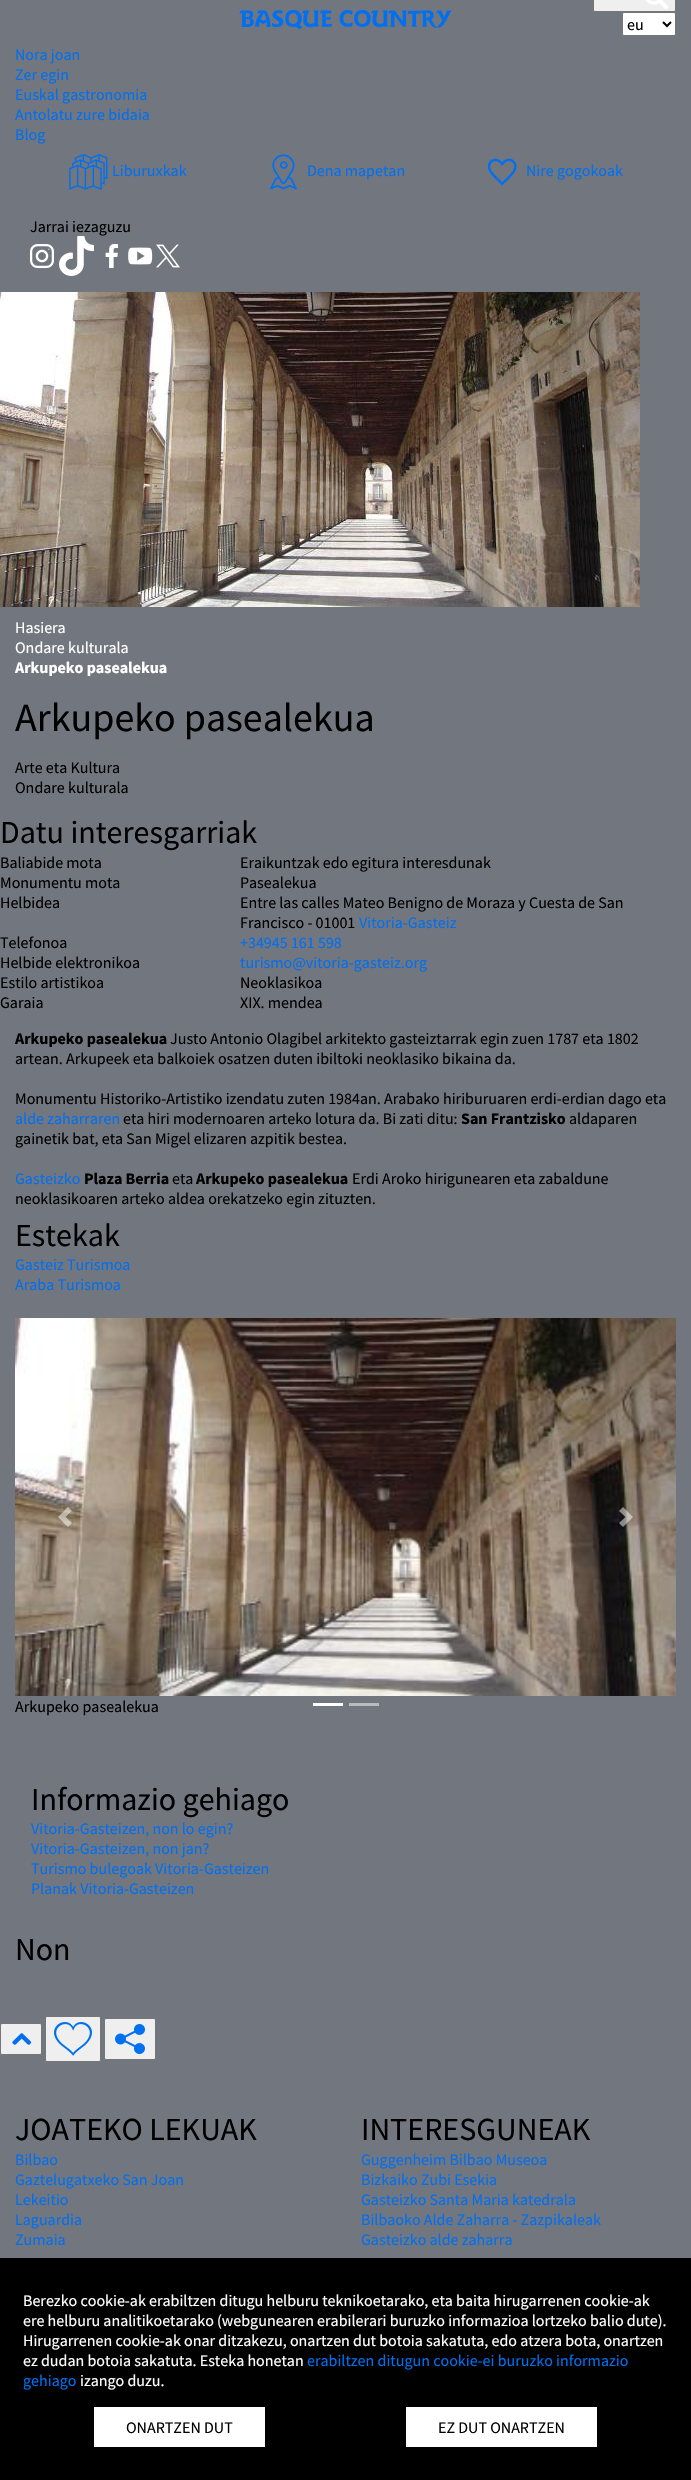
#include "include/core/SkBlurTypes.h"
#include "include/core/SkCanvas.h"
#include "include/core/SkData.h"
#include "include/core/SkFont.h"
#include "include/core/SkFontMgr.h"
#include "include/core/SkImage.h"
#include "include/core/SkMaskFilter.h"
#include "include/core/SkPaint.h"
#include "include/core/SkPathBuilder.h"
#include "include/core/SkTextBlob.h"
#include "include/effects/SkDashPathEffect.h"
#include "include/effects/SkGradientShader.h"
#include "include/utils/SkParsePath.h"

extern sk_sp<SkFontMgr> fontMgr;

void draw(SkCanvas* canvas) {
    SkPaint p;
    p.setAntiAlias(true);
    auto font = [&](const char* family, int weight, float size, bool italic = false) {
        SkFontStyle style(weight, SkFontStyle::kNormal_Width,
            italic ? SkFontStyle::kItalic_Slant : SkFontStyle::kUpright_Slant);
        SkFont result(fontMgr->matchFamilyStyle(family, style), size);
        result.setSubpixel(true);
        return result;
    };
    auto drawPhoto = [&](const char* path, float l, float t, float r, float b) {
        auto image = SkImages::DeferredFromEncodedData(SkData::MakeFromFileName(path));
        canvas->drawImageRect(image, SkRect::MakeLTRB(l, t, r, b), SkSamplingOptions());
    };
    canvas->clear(0xFF72767E);
    drawPhoto("media/1.png", 239, 10, 452, 30);
    p.setColor(0xFFEFEFEF);
    canvas->drawRoundRect(SkRect::MakeLTRB(593.5f, -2.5f, 675.5f, 11.5f), 1.5f, 1.5f, p);
    p.setStyle(SkPaint::kStroke_Style);
    p.setStrokeWidth(1);
    p.setColor(0xFF767676);
    canvas->drawRoundRect(SkRect::MakeLTRB(593.5f, -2.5f, 675.5f, 11.5f), 1.5f, 1.5f, p);
    drawPhoto("media/2.png", 646, 0, 668, 9);
    p.setStyle(SkPaint::kFill_Style);
    p.setColor(0xFFFFFFFF);
    canvas->drawRoundRect(SkRect::MakeLTRB(622.5f, 12.5f, 675.5f, 35.5f), 1.5f, 1.5f, p);
    p.setStyle(SkPaint::kStroke_Style);
    p.setColor(0xFF767676);
    canvas->drawRoundRect(SkRect::MakeLTRB(622.5f, 12.5f, 675.5f, 35.5f), 1.5f, 1.5f, p);
    p.setStrokeWidth(2);
    p.setColor(0xFF000000);
    canvas->drawPath(SkPathBuilder().moveTo(663, 22).lineTo(667, 26).lineTo(671, 22).detach(), p);
    auto font1 = font("Source Sans Pro", 400, 16);
    p.setStyle(SkPaint::kFill_Style);
    canvas->drawString("eu", 627, 30, font1, p);
    p.setColor(0xFF006FF0);
    {
        const struct { const char* s; float x, y; } items[] = {
            {"Nora joan", 15, 60},
            {"Zer egin", 15, 80},
            {"Euskal gastronomia", 15, 100},
            {"Antolatu zure bidaia", 15, 120},
            {"Blog", 15, 140},
        };
        for (auto [s, x, y] : items) {
            canvas->drawString(s, x, y, font1, p);
        }
    }
    drawPhoto("media/3.png", 69, 154, 108, 190);
    canvas->drawString("Liburuxkak", 112, 176, font1, p);
    drawPhoto("media/4.png", 270, 154, 297, 190);
    canvas->drawString("Dena mapetan", 307, 176, font1, p);
    drawPhoto("media/5.png", 487, 158, 517, 186);
    canvas->drawString("Nire gogokoak", 526, 176, font1, p);
    p.setColor(0xFF000000);
    canvas->drawString("Jarrai iezaguzu", 30, 232, font1, p);
    drawPhoto("media/6.png", 30, 244, 54, 269);
    drawPhoto("media/7.png", 59, 236, 94, 276);
    drawPhoto("media/8.png", 105, 244, 118, 268);
    drawPhoto("media/9.png", 128, 247, 153, 265);
    drawPhoto("media/10.png", 156, 244, 180, 268);
    drawPhoto("media/11.png", 0, 292, 640, 607);
    p.setColor(0xFFFFFFFF);
    canvas->drawString("Hasiera", 15, 633, font1, p);
    canvas->drawString("Ondare kulturala", 15, 653, font1, p);
    auto font2 = font("Source Sans Pro", 700, 16);
    canvas->drawString("Arkupeko pasealekua", 15, 673, font2, p);
    auto font3 = font("Source Sans Pro", 400, 40);
    p.setColor(0xFF000000);
    canvas->drawString("Arkupeko pasealekua", 15, 731, font3, p);
    canvas->drawString("Arte eta Kultura", 15, 773, font1, p);
    canvas->drawString("Ondare kulturala", 15, 793, font1, p);
    auto font4 = font("Source Sans Pro", 400, 32);
    canvas->drawString("Datu interesgarriak", 0, 843, font4, p);
    {
        const struct { const char* s; float x, y; } items[] = {
            {"Baliabide mota", 0, 868},
            {"Eraikuntzak edo egitura interesdunak", 240, 868},
            {"Monumentu mota", 0, 888},
            {"Pasealekua", 240, 888},
            {"Helbidea", 0, 908},
            {"Entre las calles Mateo Benigno de Moraza y Cuesta de San", 240, 908},
            {"Francisco - 01001", 240, 928},
        };
        for (auto [s, x, y] : items) {
            canvas->drawString(s, x, y, font1, p);
        }
    }
    p.setColor(0xFF006FF0);
    canvas->drawString("Vitoria-Gasteiz", 359, 928, font1, p);
    p.setColor(0xFF000000);
    canvas->drawString("Telefonoa", 0, 948, font1, p);
    p.setColor(0xFF006FF0);
    canvas->drawString("+34945 161 598", 240, 948, font1, p);
    p.setColor(0xFF000000);
    canvas->drawString("Helbide elektronikoa", 0, 968, font1, p);
    p.setColor(0xFF006FF0);
    canvas->drawString("turismo@vitoria-gasteiz.org", 240, 968, font1, p);
    p.setColor(0xFF000000);
    {
        const struct { const char* s; float x, y; } items[] = {
            {"Estilo artistikoa", 0, 988},
            {"Neoklasikoa", 240, 988},
            {"Garaia", 0, 1008},
            {"XIX. mendea", 240, 1008},
        };
        for (auto [s, x, y] : items) {
            canvas->drawString(s, x, y, font1, p);
        }
    }
    canvas->drawString("Arkupeko pasealekua", 15, 1044, font2, p);
    {
        const struct { const char* s; float x, y; } items[] = {
            {"Justo Antonio Olagibel arkitekto gasteiztarrak egin zuen 1787 eta 1802", 170, 1044},
            {"artean. Arkupeek eta balkoiek osatzen duten ibiltoki neoklasiko bikaina da.", 15, 1064},
            {"Monumentu Historiko-Artistiko izendatu zuten 1984an. Arabako hiriburuaren erdi-erdian dago eta", 15, 1104},
        };
        for (auto [s, x, y] : items) {
            canvas->drawString(s, x, y, font1, p);
        }
    }
    p.setColor(0xFF006FF0);
    canvas->drawString("alde zaharraren", 15, 1124, font1, p);
    p.setColor(0xFF000000);
    canvas->drawString("eta hiri modernoaren arteko lotura da. Bi zati ditu:", 123, 1124, font1, p);
    canvas->drawString("San Frantzisko", 461, 1124, font2, p);
    canvas->drawString("aldaparen", 569, 1124, font1, p);
    canvas->drawString("gainetik bat, eta San Migel elizaren azpitik bestea.", 15, 1144, font1, p);
    p.setColor(0xFF006FF0);
    canvas->drawString("Gasteizko", 15, 1184, font1, p);
    p.setColor(0xFF000000);
    canvas->drawString("Plaza Berria", 84, 1184, font2, p);
    canvas->drawString("eta", 172, 1184, font1, p);
    canvas->drawString("Arkupeko pasealekua", 196, 1184, font2, p);
    canvas->drawString("Erdi Aroko hirigunearen eta zabaldune", 352, 1184, font1, p);
    canvas->drawString("neoklasikoaren arteko aldea orekatzeko egin zituzten.", 15, 1204, font1, p);
    canvas->drawString("Estekak", 15, 1246, font4, p);
    p.setColor(0xFF006FF0);
    canvas->drawString("Gasteiz Turismoa", 15, 1270, font1, p);
    canvas->drawString("Araba Turismoa", 15, 1290, font1, p);
    drawPhoto("media/12.png", 15, 1318, 676, 1696);
    p.setColor(0x80FFFFFF);
    canvas->drawPath(SkPathBuilder().moveTo(68, 1507).lineTo(58, 1517).lineTo(68, 1527).lineTo(72, 1523).lineTo(65.5f, 1517).lineTo(72, 1511).close().detach(), p);
    canvas->drawPath(SkPathBuilder().moveTo(623, 1507).lineTo(619, 1511).lineTo(625.5f, 1517).lineTo(619, 1523).lineTo(623, 1527).lineTo(633, 1517).close().detach(), p);
    p.setColor(0xFF000000);
    canvas->drawString("Arkupeko pasealekua", 15, 1712, font1, p);
    p.setColor(0xFFFFFFFF);
    canvas->drawRect(SkRect::MakeLTRB(313, 1703, 343, 1706), p);
    p.setColor(0xFFB9BBBF);
    canvas->drawRect(SkRect::MakeLTRB(349, 1703, 379, 1706), p);
    p.setColor(0xFF000000);
    canvas->drawString("Informazio gehiago", 31, 1810, font4, p);
    p.setColor(0xFF006FF0);
    {
        const struct { const char* s; float x, y; } items[] = {
            {"Vitoria-Gasteizen, non lo egin?", 31, 1834},
            {"Vitoria-Gasteizen, non jan?", 31, 1854},
            {"Turismo bulegoak Vitoria-Gasteizen", 31, 1874},
            {"Planak Vitoria-Gasteizen", 31, 1894},
        };
        for (auto [s, x, y] : items) {
            canvas->drawString(s, x, y, font1, p);
        }
    }
    p.setColor(0xFF000000);
    canvas->drawString("Non", 15, 1960, font4, p);
    p.setColor(0xFFEFEFEF);
    canvas->drawRoundRect(SkRect::MakeLTRB(0.5f, 2023.5f, 41.5f, 2054.5f), 1.5f, 1.5f, p);
    p.setStyle(SkPaint::kStroke_Style);
    p.setStrokeWidth(1);
    p.setColor(0xFF767676);
    canvas->drawRoundRect(SkRect::MakeLTRB(0.5f, 2023.5f, 41.5f, 2054.5f), 1.5f, 1.5f, p);
    drawPhoto("media/13.png", 12, 2033, 32, 2045);
    p.setStyle(SkPaint::kFill_Style);
    p.setColor(0xFFEFEFEF);
    canvas->drawRoundRect(SkRect::MakeLTRB(45.5f, 2016.5f, 100.5f, 2061.5f), 1.5f, 1.5f, p);
    p.setStyle(SkPaint::kStroke_Style);
    p.setColor(0xFF767676);
    canvas->drawRoundRect(SkRect::MakeLTRB(45.5f, 2016.5f, 100.5f, 2061.5f), 1.5f, 1.5f, p);
    drawPhoto("media/14.png", 54, 2022, 92, 2056);
    p.setStyle(SkPaint::kFill_Style);
    p.setColor(0xFFEFEFEF);
    canvas->drawRoundRect(SkRect::MakeLTRB(104.5f, 2018.5f, 155.5f, 2059.5f), 1.5f, 1.5f, p);
    p.setStyle(SkPaint::kStroke_Style);
    p.setColor(0xFF767676);
    canvas->drawRoundRect(SkRect::MakeLTRB(104.5f, 2018.5f, 155.5f, 2059.5f), 1.5f, 1.5f, p);
    drawPhoto("media/15.png", 115, 2024, 145, 2054);
    p.setStyle(SkPaint::kFill_Style);
    p.setColor(0xFF000000);
    canvas->drawString("JOATEKO LEKUAK", 15, 2140, font4, p);
    p.setColor(0xFF006FF0);
    {
        const struct { const char* s; float x, y; } items[] = {
            {"Bilbao", 15, 2165},
            {"Gaztelugatxeko San Joan", 15, 2185},
            {"Lekeitio", 15, 2205},
            {"Laguardia", 15, 2225},
            {"Zumaia", 15, 2245},
        };
        for (auto [s, x, y] : items) {
            canvas->drawString(s, x, y, font1, p);
        }
    }
    p.setColor(0xFF000000);
    canvas->drawString("INTERESGUNEAK", 361, 2140, font4, p);
    p.setColor(0xFF006FF0);
    {
        const struct { const char* s; float x, y; } items[] = {
            {"Guggenheim Bilbao Museoa", 361, 2165},
            {"Bizkaiko Zubi Esekia", 361, 2185},
            {"Gasteizko Santa Maria katedrala", 361, 2205},
            {"Bilbaoko Alde Zaharra - Zazpikaleak", 361, 2225},
            {"Gasteizko alde zaharra", 361, 2245},
        };
        for (auto [s, x, y] : items) {
            canvas->drawString(s, x, y, font1, p);
        }
    }
    p.setColor(0xFF000000);
    canvas->drawRect(SkRect::MakeLTRB(0, 2258, 691, 2480), p);
    p.setColor(0xFFFFFFFF);
    {
        const struct { const char* s; float x, y; } items[] = {
            {"Berezko cookie-ak erabiltzen ditugu helburu teknikoetarako, eta baita hirugarrenen cookie-ak", 23, 2306},
            {"ere helburu analitikoetarako (webgunearen erabilerari buruzko informazioa lortzeko balio dute).", 23, 2326},
            {"Hirugarrenen cookie-ak onar ditzakezu, onartzen dut botoia sakatuta, edo atzera bota, onartzen", 23, 2346},
            {"ez dudan botoia sakatuta. Esteka honetan", 23, 2366},
        };
        for (auto [s, x, y] : items) {
            canvas->drawString(s, x, y, font1, p);
        }
    }
    p.setColor(0xFF006FF0);
    canvas->drawString("erabiltzen ditugun cookie-ei buruzko informazio", 307, 2366, font1, p);
    canvas->drawString("gehiago", 23, 2386, font1, p);
    p.setColor(0xFFFFFFFF);
    canvas->drawString("izango duzu.", 80, 2386, font1, p);
    canvas->drawRect(SkRect::MakeLTRB(94, 2407, 265, 2447), p);
    p.setColor(0xFF000000);
    canvas->drawString("ONARTZEN DUT", 126, 2433, font1, p);
    p.setColor(0xFFFFFFFF);
    canvas->drawRect(SkRect::MakeLTRB(406, 2407, 597, 2447), p);
    p.setColor(0xFF000000);
    canvas->drawString("EZ DUT ONARTZEN", 438, 2433, font1, p);
}
